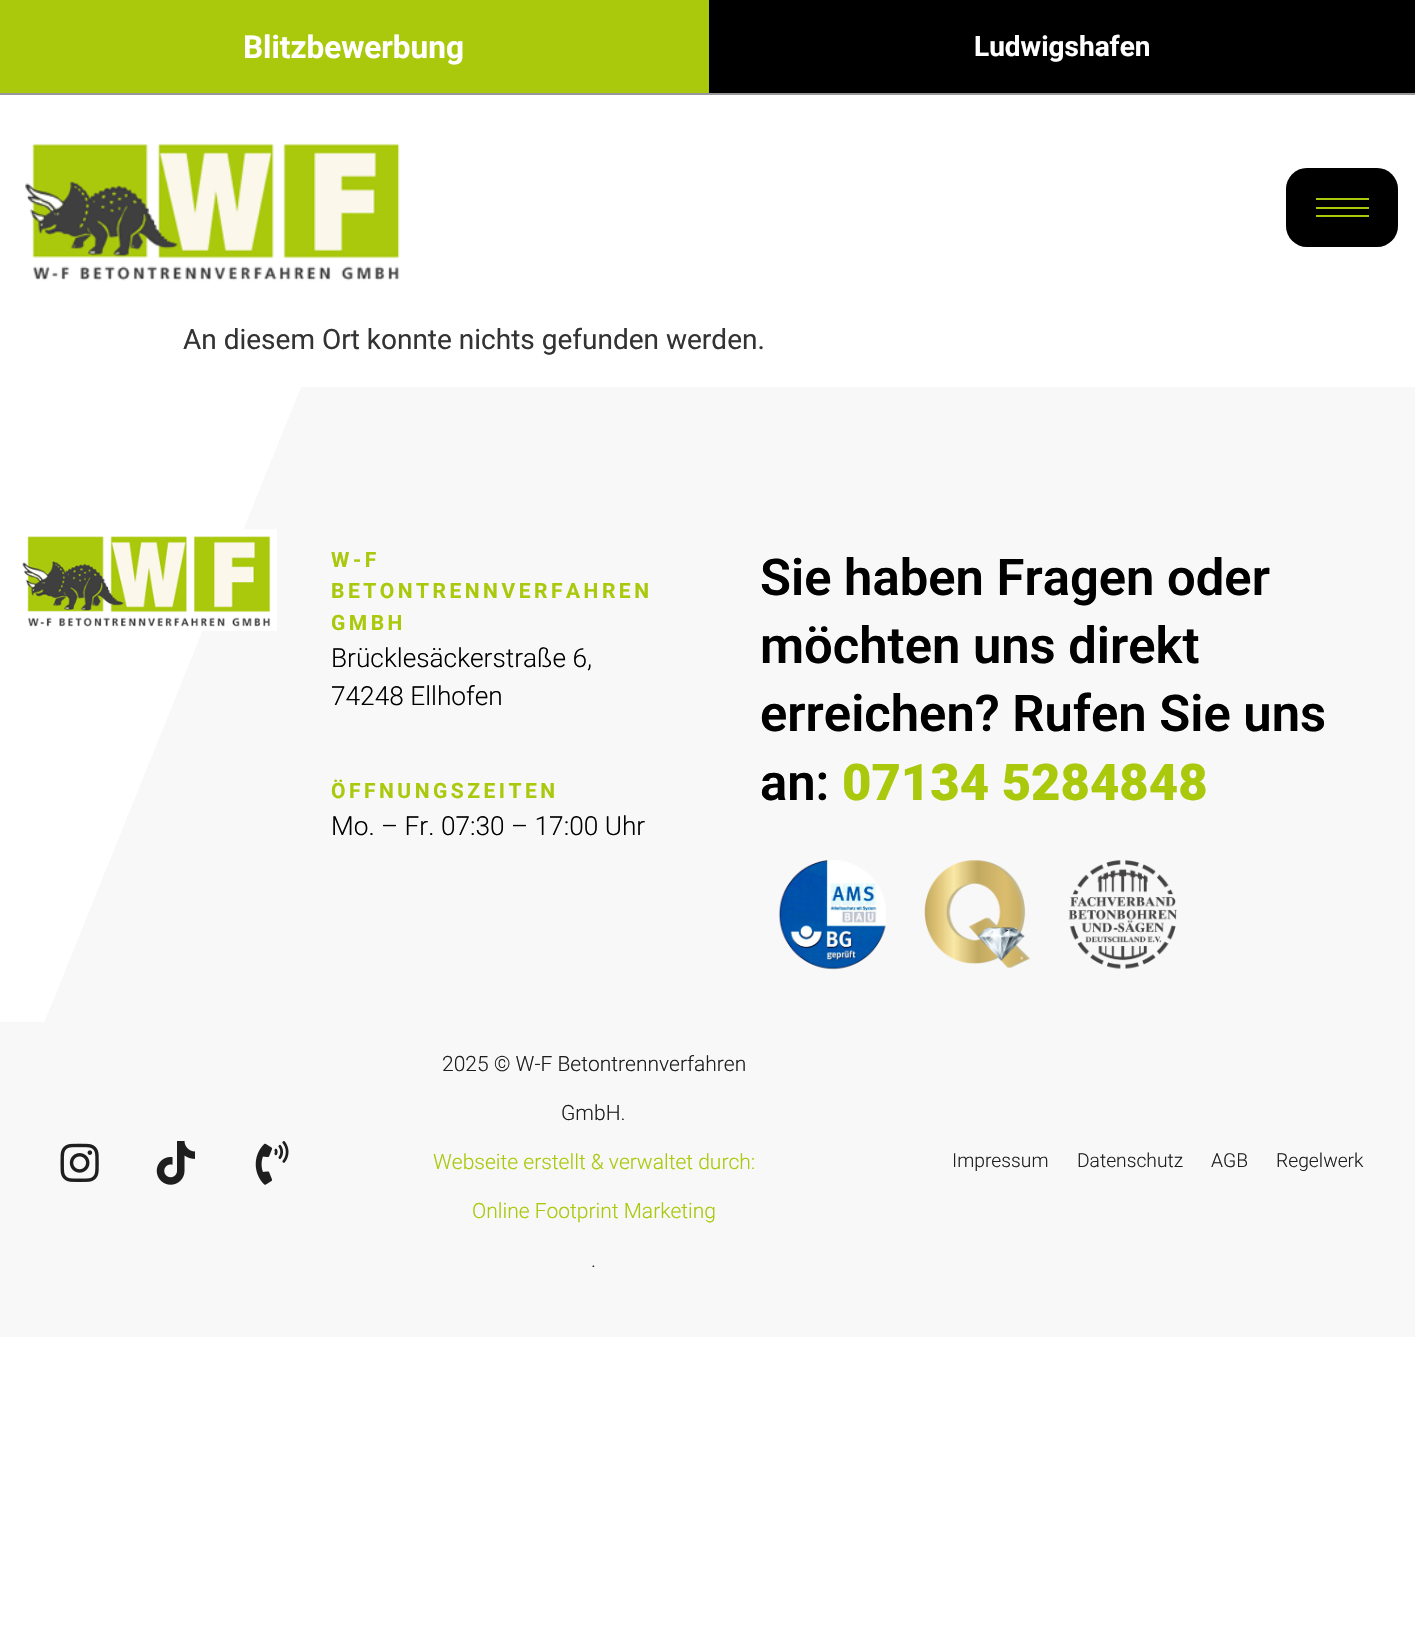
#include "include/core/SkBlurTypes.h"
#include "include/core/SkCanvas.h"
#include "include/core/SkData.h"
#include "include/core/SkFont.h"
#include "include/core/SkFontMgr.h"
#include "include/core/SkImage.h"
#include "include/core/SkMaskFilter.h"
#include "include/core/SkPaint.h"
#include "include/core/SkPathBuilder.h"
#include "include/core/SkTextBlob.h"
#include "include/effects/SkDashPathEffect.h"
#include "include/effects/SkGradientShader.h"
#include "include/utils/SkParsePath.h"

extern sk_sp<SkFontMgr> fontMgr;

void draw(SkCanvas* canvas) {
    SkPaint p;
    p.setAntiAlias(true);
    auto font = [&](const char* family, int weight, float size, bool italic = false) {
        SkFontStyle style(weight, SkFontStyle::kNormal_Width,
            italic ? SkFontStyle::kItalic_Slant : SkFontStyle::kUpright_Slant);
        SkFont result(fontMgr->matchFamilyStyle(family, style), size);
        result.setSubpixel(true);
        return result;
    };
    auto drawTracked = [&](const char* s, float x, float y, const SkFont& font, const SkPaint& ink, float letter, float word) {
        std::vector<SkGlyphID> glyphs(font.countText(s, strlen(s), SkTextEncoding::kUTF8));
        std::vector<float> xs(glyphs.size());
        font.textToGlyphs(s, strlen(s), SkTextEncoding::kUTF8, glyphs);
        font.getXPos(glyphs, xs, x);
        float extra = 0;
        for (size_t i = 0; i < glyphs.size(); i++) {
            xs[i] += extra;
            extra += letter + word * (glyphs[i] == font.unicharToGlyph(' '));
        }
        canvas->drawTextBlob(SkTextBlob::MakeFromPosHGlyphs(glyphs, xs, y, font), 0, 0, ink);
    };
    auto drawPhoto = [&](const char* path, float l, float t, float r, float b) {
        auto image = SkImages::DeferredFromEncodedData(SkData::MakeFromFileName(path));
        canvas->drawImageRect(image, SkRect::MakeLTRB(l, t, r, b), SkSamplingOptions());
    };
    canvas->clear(0xFFFFFFFF);
    p.setColor(0xFF979797);
    canvas->drawRect(SkRect::MakeLTRB(0, 93, 1415, 95), p);
    p.setColor(0xFFAAC90C);
    canvas->drawRect(SkRect::MakeLTRB(0, 0, 709, 93), p);
    auto font1 = font("Roboto", 700, 31.5f);
    p.setColor(0xFFFFFFFF);
    canvas->drawString("Blitzbewerbung", 243, 58, font1, p);
    p.setColor(0xFF000000);
    canvas->drawRect(SkRect::MakeLTRB(709, 0, 1415, 93), p);
    auto font2 = font("Roboto", 700, 28);
    p.setColor(0xFFFFFFFF);
    canvas->drawString("Ludwigshafen", 974, 56, font2, p);
    drawPhoto("media/1.png", 25, 143, 400, 281);
    p.setColor(0xFF000000);
    canvas->drawRoundRect(SkRect::MakeLTRB(1286, 168, 1398, 247), 21, 21, p);
    p.setStyle(SkPaint::kStroke_Style);
    p.setStrokeWidth(2);
    p.setColor(0x33000000);
    canvas->drawRoundRect(SkRect::MakeLTRB(1287, 169, 1397, 246), 20, 20, p);
    p.setStyle(SkPaint::kFill_Style);
    {
        const struct { float l, t, r, b; SkColor color; } items[] = {
            {1316, 198, 1369, 200, 0xFFAAC90C},
            {1316, 207, 1369, 209, 0xFFAAC90C},
            {1316, 215, 1369, 217, 0xFFAAC90C},
        };
        for (auto [l, t, r, b, color] : items) {
            p.setColor(color);
            canvas->drawRect(SkRect::MakeLTRB(l, t, r, b), p);
        }
    }
    auto font3 = font("Roboto", 400, 28);
    p.setColor(0xFF333333);
    canvas->drawString("An diesem Ort konnte nichts gefunden werden.", 183, 349, font3, p);
    {
        const SkColor colors[] = {0xFFFFFFFF, 0xFFF8F8F8};
        const float stops[] = {0.18f, 0.18f};
        const SkPoint ends[] = {{-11, 414}, {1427, 995}};
        p.setShader(SkGradientShader::MakeLinear(ends, colors, stops, 2, SkTileMode::kClamp));
        p.setAlpha(255);
    }
    canvas->drawRect(SkRect::MakeLTRB(45, 387, 1415, 1022), p);
    drawPhoto("media/2.png", 22, 529, 277, 631);
    auto font4 = font("Roboto", 700, 21);
    p.setShader(nullptr);
    p.setColor(0xFFAAC90C);
    {
        const struct { const char* s; float x, y; } items[] = {
            {"W-F", 331, 567},
            {"BETONTRENNVERFAHREN", 331, 598},
            {"GMBH", 331, 630},
        };
        for (auto [s, x, y] : items) {
            drawTracked(s, x, y, font4, p, 3.5f, 0);
        }
    }
    auto font5 = font("Roboto", 300, 26.25f);
    p.setColor(0xFF000000);
    canvas->drawString("Brücklesäckerstraße 6,", 331, 667, font5, p);
    canvas->drawString("74248 Ellhofen", 331, 705, font5, p);
    p.setColor(0xFFAAC90C);
    drawTracked("ÖFFNUNGSZEITEN", 331, 798, font4, p, 3.5f, 0);
    p.setColor(0xFF000000);
    canvas->drawString("Mo. – Fr. 07:30 – 17:00 Uhr", 331, 835, font5, p);
    auto font6 = font("Roboto", 600, 50.75f);
    {
        const struct { const char* s; float x, y; } items[] = {
            {"Sie haben Fragen oder", 760, 595},
            {"möchten uns direkt", 760, 663},
            {"erreichen? Rufen Sie uns", 760, 731},
            {"an:", 760, 800},
        };
        for (auto [s, x, y] : items) {
            canvas->drawString(s, x, y, font6, p);
        }
    }
    auto font7 = font("Roboto", 900, 50.75f);
    p.setColor(0xFFAAC90C);
    canvas->drawString("07134 5284848", 842, 800, font7, p);
    drawPhoto("media/3.png", 778, 860, 886, 970);
    drawPhoto("media/4.png", 924, 860, 1030, 968);
    drawPhoto("media/5.png", 1068, 860, 1177, 969);
    p.setColor(0xFFF8F8F8);
    canvas->drawRect(SkRect::MakeLTRB(0, 1022, 1415, 1337), p);
    drawPhoto("media/6.png", 60, 1143, 99, 1182);
    drawPhoto("media/7.png", 156, 1141, 195, 1185);
    drawPhoto("media/8.png", 255, 1141, 289, 1185);
    auto font8 = font("Roboto", 300, 21);
    p.setColor(0xFF1E1E1E);
    canvas->drawString("2025 © W-F Betontrennverfahren", 442, 1071, font8, p);
    canvas->drawString("GmbH.", 561, 1120, font8, p);
    p.setColor(0xFFAAC90C);
    canvas->drawString("Webseite erstellt & verwaltet durch:", 433, 1169, font8, p);
    canvas->drawString("Online Footprint Marketing", 472, 1218, font8, p);
    p.setColor(0xFF1E1E1E);
    canvas->drawString(".", 591, 1267, font8, p);
    auto font9 = font("Roboto", 300, 19.25f);
    {
        const struct { const char* s; float x, y; } items[] = {
            {"Impressum", 952, 1167},
            {"Datenschutz", 1077, 1167},
            {"AGB", 1211, 1167},
            {"Regelwerk", 1276, 1167},
        };
        for (auto [s, x, y] : items) {
            canvas->drawString(s, x, y, font9, p);
        }
    }
}
